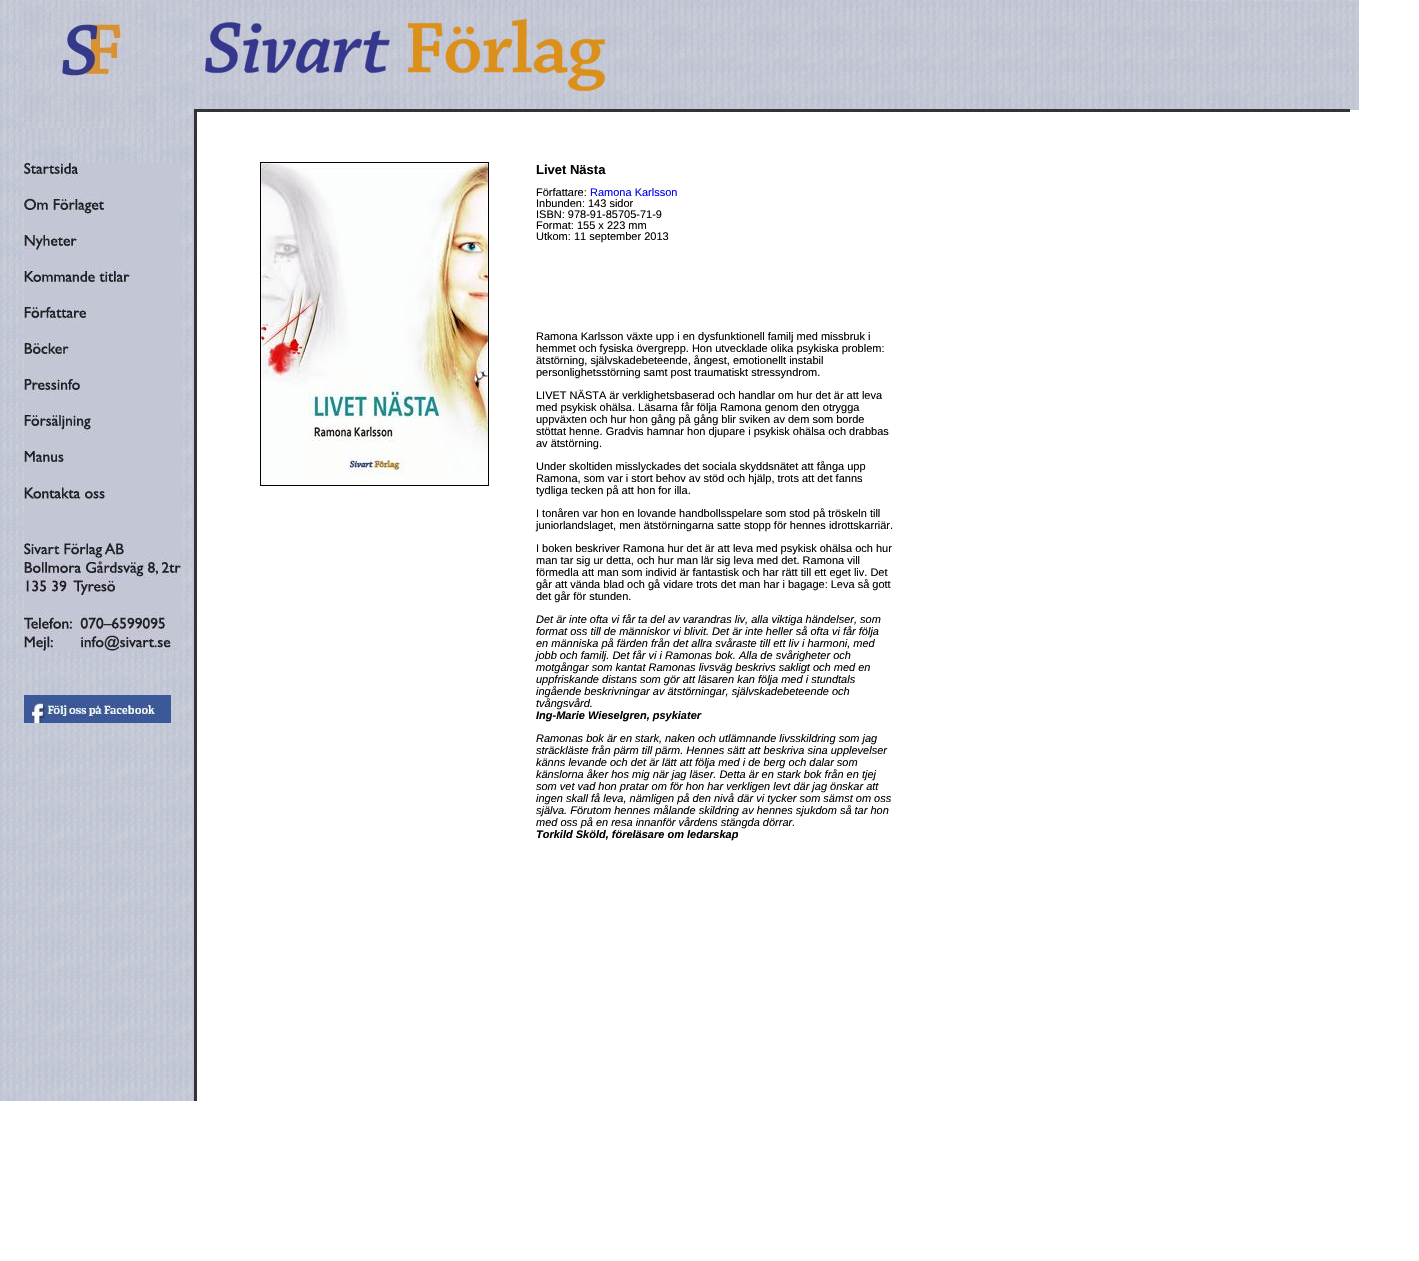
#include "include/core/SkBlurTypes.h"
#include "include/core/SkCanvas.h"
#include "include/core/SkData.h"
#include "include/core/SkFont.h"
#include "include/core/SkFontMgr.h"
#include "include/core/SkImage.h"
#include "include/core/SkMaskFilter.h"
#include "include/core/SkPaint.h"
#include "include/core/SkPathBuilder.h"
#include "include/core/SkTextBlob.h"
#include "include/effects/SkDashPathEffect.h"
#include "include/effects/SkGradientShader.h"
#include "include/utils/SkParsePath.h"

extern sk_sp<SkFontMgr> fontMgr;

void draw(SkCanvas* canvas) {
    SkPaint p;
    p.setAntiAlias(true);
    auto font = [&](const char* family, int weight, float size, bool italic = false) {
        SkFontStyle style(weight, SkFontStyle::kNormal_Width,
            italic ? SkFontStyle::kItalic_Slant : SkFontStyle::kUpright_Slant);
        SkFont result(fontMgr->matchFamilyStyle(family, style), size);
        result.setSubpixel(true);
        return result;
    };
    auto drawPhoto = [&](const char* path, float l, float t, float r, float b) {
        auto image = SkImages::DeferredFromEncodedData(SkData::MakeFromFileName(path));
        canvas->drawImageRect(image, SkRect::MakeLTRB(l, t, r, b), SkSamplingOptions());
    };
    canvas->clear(0xFFFFFFFF);
    drawPhoto("media/1.png", 0, 0, 195, 275);
    drawPhoto("media/2.png", 260, 162, 489, 486);
    drawPhoto("media/3.png", 23, 0, 156, 128);
    drawPhoto("media/4.png", 195, 0, 1135, 109);
    drawPhoto("media/5.png", 1135, 0, 1359, 110);
    p.setColor(0xFF333333);
    canvas->drawRect(SkRect::MakeLTRB(194, 110, 197, 1101), p);
    canvas->drawRect(SkRect::MakeLTRB(194, 109, 1350, 112), p);
    drawPhoto("media/7.png", 0, 275, 194, 1101);
    drawPhoto("media/6.png", 24, 163, 181, 651);
    auto font1 = font("Liberation Sans", 700, 13);
    p.setColor(0xFF000000);
    canvas->drawString("Livet Nästa", 536, 174, font1, p);
    auto font2 = font("Liberation Sans", 400, 11);
    canvas->drawString("Författare:", 536, 196, font2, p);
    p.setColor(0xFF0000EE);
    canvas->drawString("Ramona Karlsson", 590, 196, font2, p);
    p.setColor(0xFF000000);
    {
        const struct { const char* s; float x, y; } items[] = {
            {"Inbunden: 143 sidor", 536, 207},
            {"ISBN: 978-91-85705-71-9", 536, 218},
            {"Format: 155 x 223 mm", 536, 229},
            {"Utkom: 11 september 2013", 536, 240},
            {"Ramona Karlsson växte upp i en dysfunktionell familj med missbruk i", 536, 340},
            {"hemmet och fysiska övergrepp. Hon utvecklade olika psykiska problem:", 536, 352},
            {"ätstörning, självskadebeteende, ångest, emotionellt instabil", 536, 364},
            {"personlighetsstörning samt post traumatiskt stressyndrom.", 536, 376},
            {"LIVET NÄSTA är verklighetsbaserad och handlar om hur det är att leva", 536, 399},
            {"med psykisk ohälsa. Läsarna får följa Ramona genom den otrygga", 536, 411},
            {"uppväxten och hur hon gång på gång blir sviken av dem som borde", 536, 423},
            {"stöttat henne. Gradvis hamnar hon djupare i psykisk ohälsa och drabbas", 536, 435},
            {"av ätstörning.", 536, 447},
            {"Under skoltiden misslyckades det sociala skyddsnätet att fånga upp", 536, 470},
            {"Ramona, som var i stort behov av stöd och hjälp, trots att det fanns", 536, 482},
            {"tydliga tecken på att hon for illa.", 536, 494},
            {"I tonåren var hon en lovande handbollsspelare som stod på tröskeln till", 536, 517},
            {"juniorlandslaget, men ätstörningarna satte stopp för hennes idrottskarriär.", 536, 529},
            {"I boken beskriver Ramona hur det är att leva med psykisk ohälsa och hur", 536, 552},
            {"man tar sig ur detta, och hur man lär sig leva med det. Ramona vill", 536, 564},
            {"förmedla att man som individ är fantastisk och har rätt till ett eget liv. Det", 536, 576},
            {"går att vända blad och gå vidare trots det man har i bagage: Leva så gott", 536, 588},
            {"det går för stunden.", 536, 600},
        };
        for (auto [s, x, y] : items) {
            canvas->drawString(s, x, y, font2, p);
        }
    }
    auto font3 = font("Liberation Sans", 400, 11, true);
    {
        const struct { const char* s; float x, y; } items[] = {
            {"Det är inte ofta vi får ta del av varandras liv, alla viktiga händelser, som", 536, 623},
            {"format oss till de människor vi blivit. Det är inte heller så ofta vi får följa", 536, 635},
            {"en människa på färden från det allra svåraste till ett liv i harmoni, med", 536, 647},
            {"jobb och familj. Det får vi i Ramonas bok. Alla de svårigheter och", 536, 659},
            {"motgångar som kantat Ramonas livsväg beskrivs sakligt och med en", 536, 671},
            {"uppfriskande distans som gör att läsaren kan följa med i stundtals", 536, 683},
            {"ingående beskrivningar av ätstörningar, självskadebeteende och", 536, 695},
            {"tvångsvård.", 536, 707},
        };
        for (auto [s, x, y] : items) {
            canvas->drawString(s, x, y, font3, p);
        }
    }
    auto font4 = font("Liberation Sans", 700, 11, true);
    canvas->drawString("Ing-Marie Wieselgren, psykiater", 536, 719, font4, p);
    {
        const struct { const char* s; float x, y; } items[] = {
            {"Ramonas bok är en stark, naken och utlämnande livsskildring som jag", 536, 742},
            {"sträckläste från pärm till pärm. Hennes sätt att beskriva sina upplevelser", 536, 754},
            {"känns levande och det är lätt att följa med i de berg och dalar som", 536, 766},
            {"känslorna åker hos mig när jag läser. Detta är en stark bok från en tjej", 536, 778},
            {"som vet vad hon pratar om för hon har verkligen levt där jag önskar att", 536, 790},
            {"ingen skall få leva, nämligen på den nivå där vi tycker som sämst om oss", 536, 802},
            {"själva. Förutom hennes målande skildring av hennes sjukdom så tar hon", 536, 814},
            {"med oss på en resa innanför vårdens stängda dörrar.", 536, 826},
        };
        for (auto [s, x, y] : items) {
            canvas->drawString(s, x, y, font3, p);
        }
    }
    canvas->drawString("Torkild Sköld, föreläsare om ledarskap", 536, 838, font4, p);
    drawPhoto("media/8.png", 24, 695, 171, 723);
}
